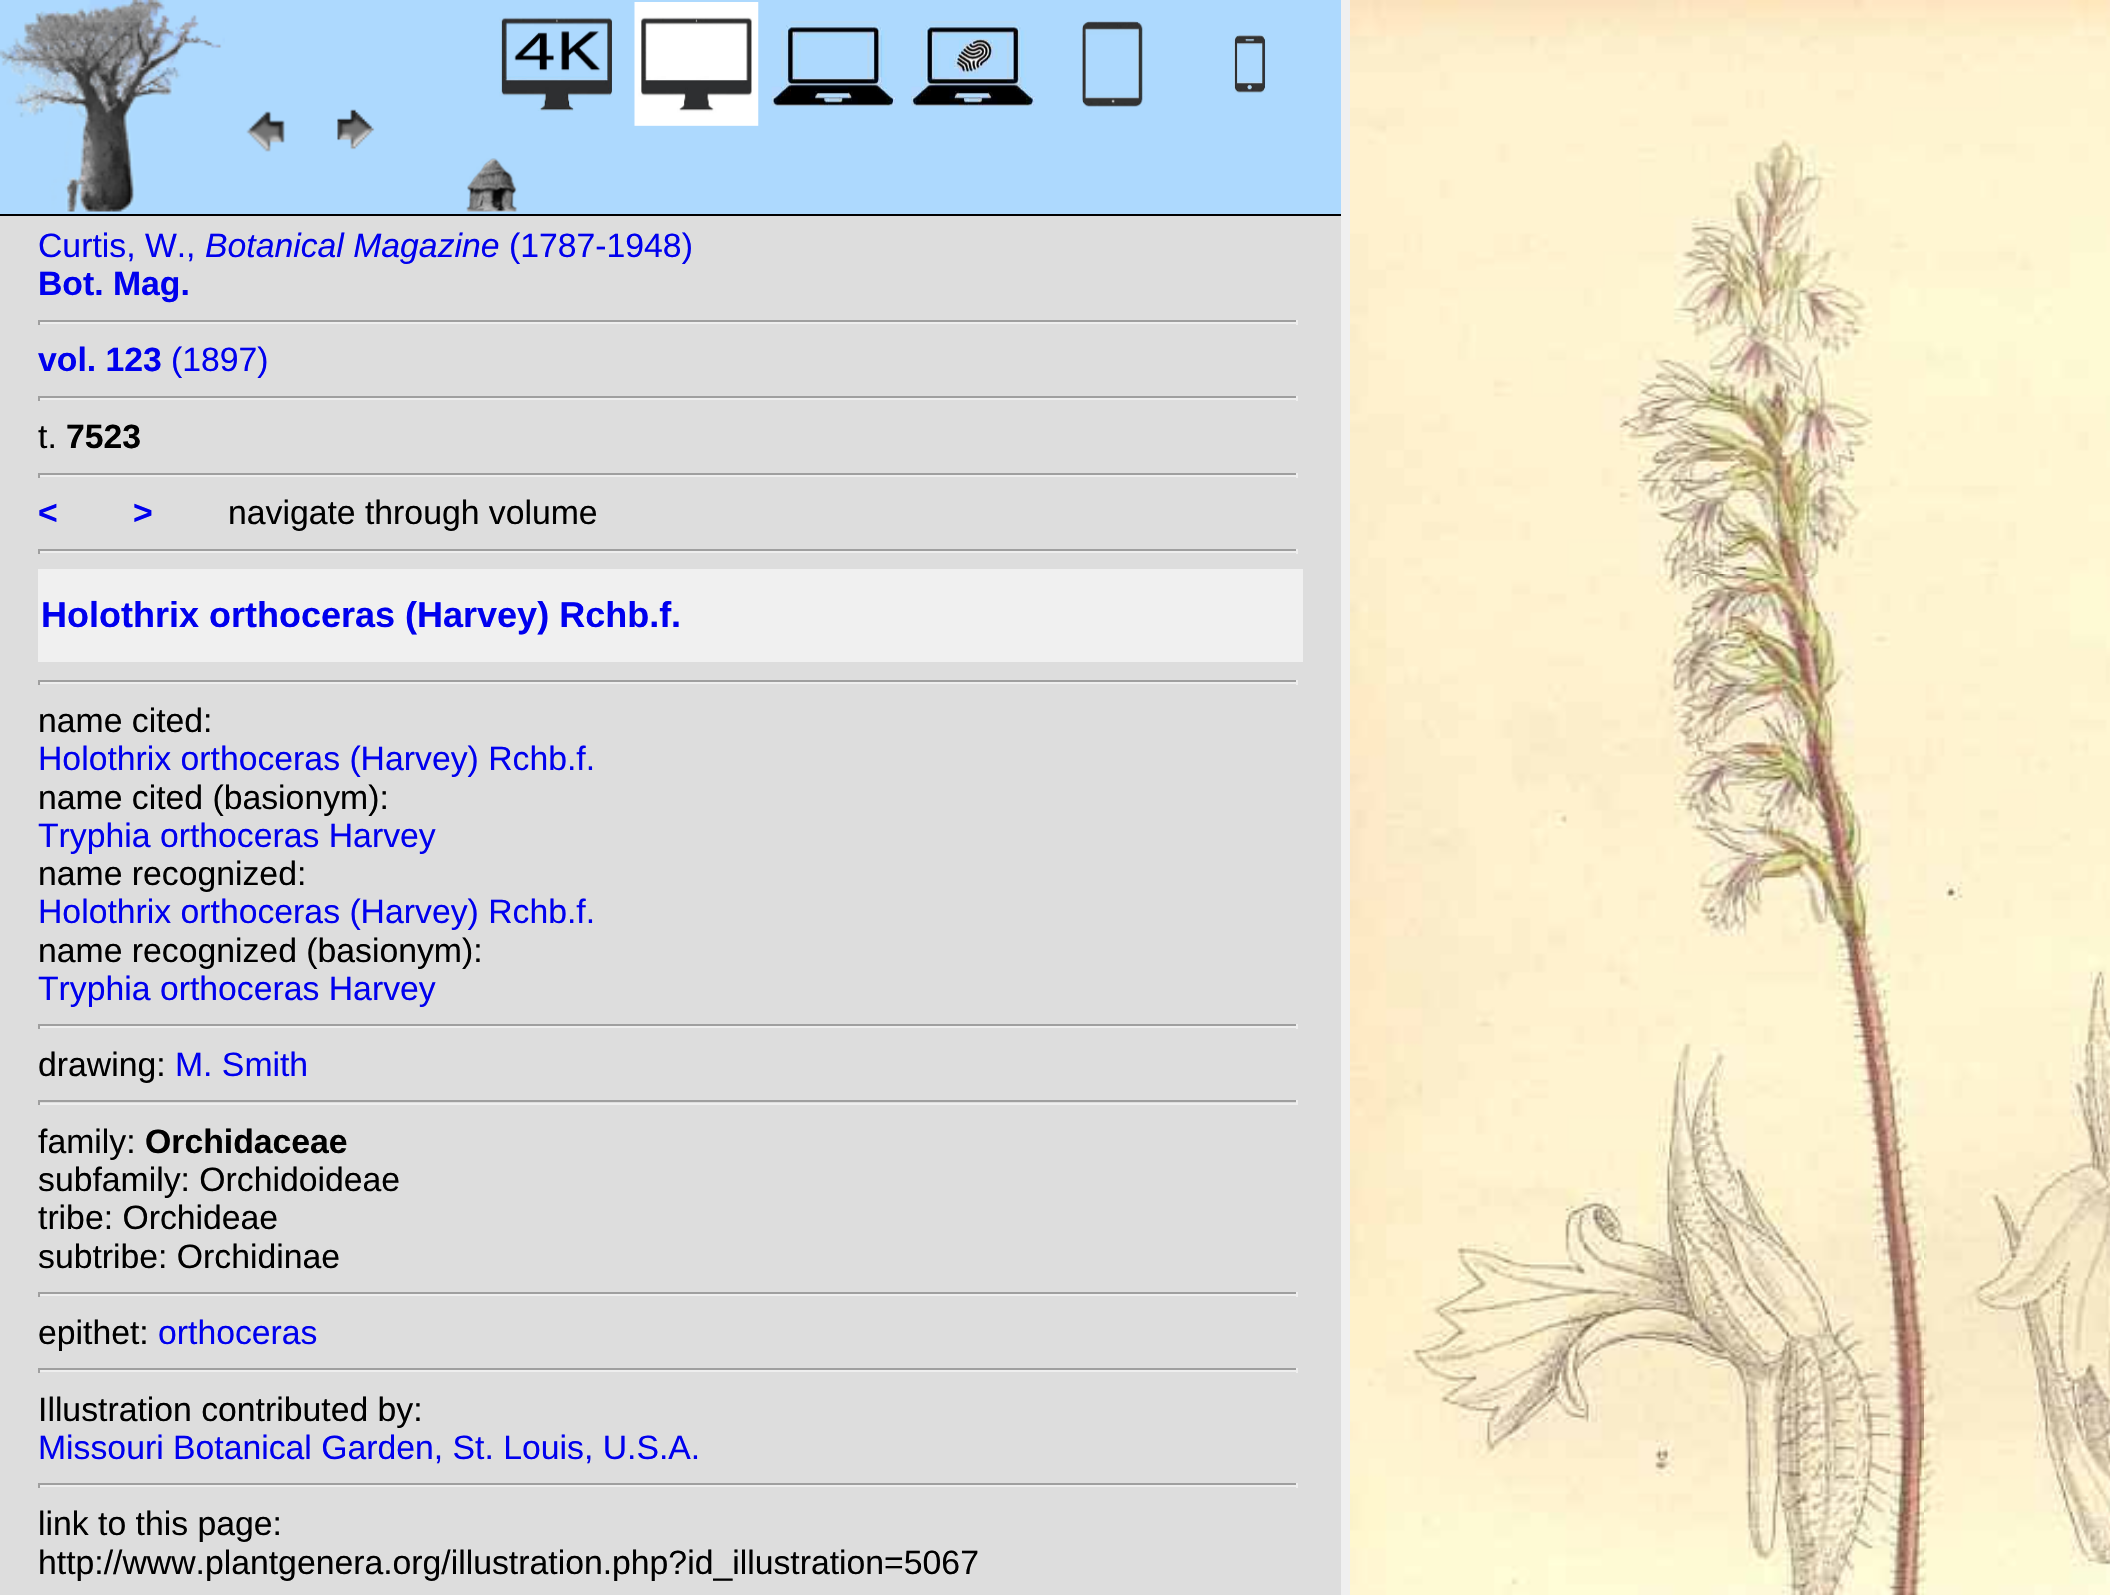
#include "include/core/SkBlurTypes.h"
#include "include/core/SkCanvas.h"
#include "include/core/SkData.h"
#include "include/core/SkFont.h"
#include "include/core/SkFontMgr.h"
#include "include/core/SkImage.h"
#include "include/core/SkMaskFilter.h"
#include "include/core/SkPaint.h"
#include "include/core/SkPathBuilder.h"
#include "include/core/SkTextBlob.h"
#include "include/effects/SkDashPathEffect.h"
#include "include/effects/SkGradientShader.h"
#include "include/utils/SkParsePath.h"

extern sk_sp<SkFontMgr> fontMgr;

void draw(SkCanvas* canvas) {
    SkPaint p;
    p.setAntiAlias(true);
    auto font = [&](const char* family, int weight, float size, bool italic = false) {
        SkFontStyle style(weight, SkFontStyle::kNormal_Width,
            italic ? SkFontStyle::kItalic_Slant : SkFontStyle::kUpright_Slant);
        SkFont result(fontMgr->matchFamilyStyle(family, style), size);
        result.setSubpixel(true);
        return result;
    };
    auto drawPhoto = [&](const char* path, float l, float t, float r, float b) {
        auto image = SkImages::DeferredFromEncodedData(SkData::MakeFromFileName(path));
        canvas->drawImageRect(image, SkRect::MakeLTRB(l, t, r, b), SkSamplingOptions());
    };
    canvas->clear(0xFFF0F0F0);
    {
        const struct { float l, t, r, b; SkColor color; } items[] = {
            {0, 216, 1341, 1595, 0xFFDDDDDD},
            {0, 0, 1341, 214, 0xFFADD9FE},
            {0, 214, 1341, 216, 0xFF000000},
        };
        for (auto [l, t, r, b, color] : items) {
            p.setColor(color);
            canvas->drawRect(SkRect::MakeLTRB(l, t, r, b), p);
        }
    }
    drawPhoto("media/1.png", 0, 0, 225, 212);
    drawPhoto("media/2.png", 246, 111, 285, 152);
    drawPhoto("media/3.png", 337, 109, 375, 150);
    drawPhoto("media/4.png", 499, 17, 613, 111);
    drawPhoto("media/5.png", 634, 2, 759, 126);
    drawPhoto("media/6.png", 771, 21, 896, 107);
    drawPhoto("media/7.png", 911, 21, 1035, 107);
    drawPhoto("media/8.png", 1082, 21, 1145, 107);
    drawPhoto("media/9.png", 1232, 35, 1266, 93);
    drawPhoto("media/10.png", 466, 158, 518, 212);
    auto font1 = font("Liberation Sans", 400, 33.75f);
    p.setColor(0xFF0000EE);
    canvas->drawString("Curtis, W.,", 38, 257, font1, p);
    auto font2 = font("Liberation Sans", 400, 33.75f, true);
    canvas->drawString("Botanical Magazine", 205, 257, font2, p);
    canvas->drawString("(1787-1948)", 509, 257, font1, p);
    auto font3 = font("Liberation Sans", 700, 33.75f);
    canvas->drawString("Bot. Mag.", 38, 295, font3, p);
    {
        const struct { float l, t, r, b; SkColor color; } items[] = {
            {38, 320, 1298, 322, 0xFF9F9F9F},
            {1296, 320, 1298, 325, 0xFFEEEEEE},
            {38, 322, 1298, 324, 0xFFEEEEEE},
            {38, 320, 40, 325, 0xFF9F9F9F},
        };
        for (auto [l, t, r, b, color] : items) {
            p.setColor(color);
            canvas->drawRect(SkRect::MakeLTRB(l, t, r, b), p);
        }
    }
    p.setColor(0xFF0000EE);
    canvas->drawString("vol. 123", 38, 371, font3, p);
    canvas->drawString("(1897)", 171, 371, font1, p);
    {
        const struct { float l, t, r, b; SkColor color; } items[] = {
            {38, 396, 1298, 398, 0xFF9F9F9F},
            {1296, 396, 1298, 401, 0xFFEEEEEE},
            {38, 398, 1298, 400, 0xFFEEEEEE},
            {38, 396, 40, 401, 0xFF9F9F9F},
        };
        for (auto [l, t, r, b, color] : items) {
            p.setColor(color);
            canvas->drawRect(SkRect::MakeLTRB(l, t, r, b), p);
        }
    }
    p.setColor(0xFF000000);
    canvas->drawString("t.", 38, 448, font1, p);
    canvas->drawString("7523", 66, 448, font3, p);
    {
        const struct { float l, t, r, b; SkColor color; } items[] = {
            {38, 473, 1298, 475, 0xFF9F9F9F},
            {1296, 473, 1298, 478, 0xFFEEEEEE},
            {38, 475, 1298, 477, 0xFFEEEEEE},
            {38, 473, 40, 478, 0xFF9F9F9F},
        };
        for (auto [l, t, r, b, color] : items) {
            p.setColor(color);
            canvas->drawRect(SkRect::MakeLTRB(l, t, r, b), p);
        }
    }
    p.setColor(0xFF0000EE);
    canvas->drawString("<", 38, 524, font3, p);
    canvas->drawString(">", 133, 524, font3, p);
    p.setColor(0xFF000000);
    canvas->drawString("navigate through volume", 228, 524, font1, p);
    {
        const struct { float l, t, r, b; SkColor color; } items[] = {
            {38, 549, 1298, 551, 0xFF9F9F9F},
            {1296, 549, 1298, 554, 0xFFEEEEEE},
            {38, 551, 1298, 553, 0xFFEEEEEE},
            {38, 549, 40, 554, 0xFF9F9F9F},
            {38, 569, 1303, 662, 0xFFF0F0F0},
        };
        for (auto [l, t, r, b, color] : items) {
            p.setColor(color);
            canvas->drawRect(SkRect::MakeLTRB(l, t, r, b), p);
        }
    }
    auto font4 = font("Liberation Sans", 700, 36);
    p.setColor(0xFF0000EE);
    canvas->drawString("Holothrix orthoceras (Harvey) Rchb.f.", 41, 627, font4, p);
    {
        const struct { float l, t, r, b; SkColor color; } items[] = {
            {38, 680, 1298, 682, 0xFF9F9F9F},
            {1296, 680, 1298, 685, 0xFFEEEEEE},
            {38, 682, 1298, 684, 0xFFEEEEEE},
            {38, 680, 40, 685, 0xFF9F9F9F},
        };
        for (auto [l, t, r, b, color] : items) {
            p.setColor(color);
            canvas->drawRect(SkRect::MakeLTRB(l, t, r, b), p);
        }
    }
    p.setColor(0xFF000000);
    canvas->drawString("name cited:", 38, 732, font1, p);
    p.setColor(0xFF0000EE);
    canvas->drawString("Holothrix orthoceras (Harvey) Rchb.f.", 38, 770, font1, p);
    p.setColor(0xFF000000);
    canvas->drawString("name cited (basionym):", 38, 809, font1, p);
    p.setColor(0xFF0000EE);
    canvas->drawString("Tryphia orthoceras Harvey", 38, 847, font1, p);
    p.setColor(0xFF000000);
    canvas->drawString("name recognized:", 38, 885, font1, p);
    p.setColor(0xFF0000EE);
    canvas->drawString("Holothrix orthoceras (Harvey) Rchb.f.", 38, 923, font1, p);
    p.setColor(0xFF000000);
    canvas->drawString("name recognized (basionym):", 38, 962, font1, p);
    p.setColor(0xFF0000EE);
    canvas->drawString("Tryphia orthoceras Harvey", 38, 1000, font1, p);
    {
        const struct { float l, t, r, b; SkColor color; } items[] = {
            {38, 1024, 1298, 1026, 0xFF9F9F9F},
            {1296, 1024, 1298, 1029, 0xFFEEEEEE},
            {38, 1026, 1298, 1028, 0xFFEEEEEE},
            {38, 1024, 40, 1029, 0xFF9F9F9F},
        };
        for (auto [l, t, r, b, color] : items) {
            p.setColor(color);
            canvas->drawRect(SkRect::MakeLTRB(l, t, r, b), p);
        }
    }
    p.setColor(0xFF000000);
    canvas->drawString("drawing:", 38, 1076, font1, p);
    p.setColor(0xFF0000EE);
    canvas->drawString("M. Smith", 175, 1076, font1, p);
    {
        const struct { float l, t, r, b; SkColor color; } items[] = {
            {38, 1100, 1298, 1102, 0xFF9F9F9F},
            {1296, 1100, 1298, 1105, 0xFFEEEEEE},
            {38, 1103, 1298, 1105, 0xFFEEEEEE},
            {38, 1100, 40, 1105, 0xFF9F9F9F},
        };
        for (auto [l, t, r, b, color] : items) {
            p.setColor(color);
            canvas->drawRect(SkRect::MakeLTRB(l, t, r, b), p);
        }
    }
    p.setColor(0xFF000000);
    canvas->drawString("family:", 38, 1153, font1, p);
    canvas->drawString("Orchidaceae", 145, 1153, font3, p);
    {
        const struct { const char* s; float x, y; } items[] = {
            {"subfamily: Orchidoideae", 38, 1191},
            {"tribe: Orchideae", 38, 1229},
            {"subtribe: Orchidinae", 38, 1268},
        };
        for (auto [s, x, y] : items) {
            canvas->drawString(s, x, y, font1, p);
        }
    }
    {
        const struct { float l, t, r, b; SkColor color; } items[] = {
            {38, 1292, 1298, 1294, 0xFF9F9F9F},
            {1296, 1292, 1298, 1297, 0xFFEEEEEE},
            {38, 1294, 1298, 1296, 0xFFEEEEEE},
            {38, 1292, 40, 1297, 0xFF9F9F9F},
        };
        for (auto [l, t, r, b, color] : items) {
            p.setColor(color);
            canvas->drawRect(SkRect::MakeLTRB(l, t, r, b), p);
        }
    }
    p.setColor(0xFF000000);
    canvas->drawString("epithet:", 38, 1344, font1, p);
    p.setColor(0xFF0000EE);
    canvas->drawString("orthoceras", 158, 1344, font1, p);
    {
        const struct { float l, t, r, b; SkColor color; } items[] = {
            {38, 1368, 1298, 1370, 0xFF9F9F9F},
            {1296, 1368, 1298, 1373, 0xFFEEEEEE},
            {38, 1370, 1298, 1372, 0xFFEEEEEE},
            {38, 1368, 40, 1373, 0xFF9F9F9F},
        };
        for (auto [l, t, r, b, color] : items) {
            p.setColor(color);
            canvas->drawRect(SkRect::MakeLTRB(l, t, r, b), p);
        }
    }
    p.setColor(0xFF000000);
    canvas->drawString("Illustration contributed by:", 38, 1421, font1, p);
    p.setColor(0xFF0000EE);
    canvas->drawString("Missouri Botanical Garden, St. Louis, U.S.A.", 38, 1459, font1, p);
    {
        const struct { float l, t, r, b; SkColor color; } items[] = {
            {38, 1483, 1298, 1485, 0xFF9F9F9F},
            {1296, 1483, 1298, 1488, 0xFFEEEEEE},
            {38, 1485, 1298, 1487, 0xFFEEEEEE},
            {38, 1483, 40, 1488, 0xFF9F9F9F},
        };
        for (auto [l, t, r, b, color] : items) {
            p.setColor(color);
            canvas->drawRect(SkRect::MakeLTRB(l, t, r, b), p);
        }
    }
    p.setColor(0xFF000000);
    canvas->drawString("link to this page:", 38, 1535, font1, p);
    canvas->drawString("http://www.plantgenera.org/illustration.php?id_illustration=5067", 38, 1574, font1, p);
    drawPhoto("media/11.png", 1350, 0, 2110, 1595);
}
